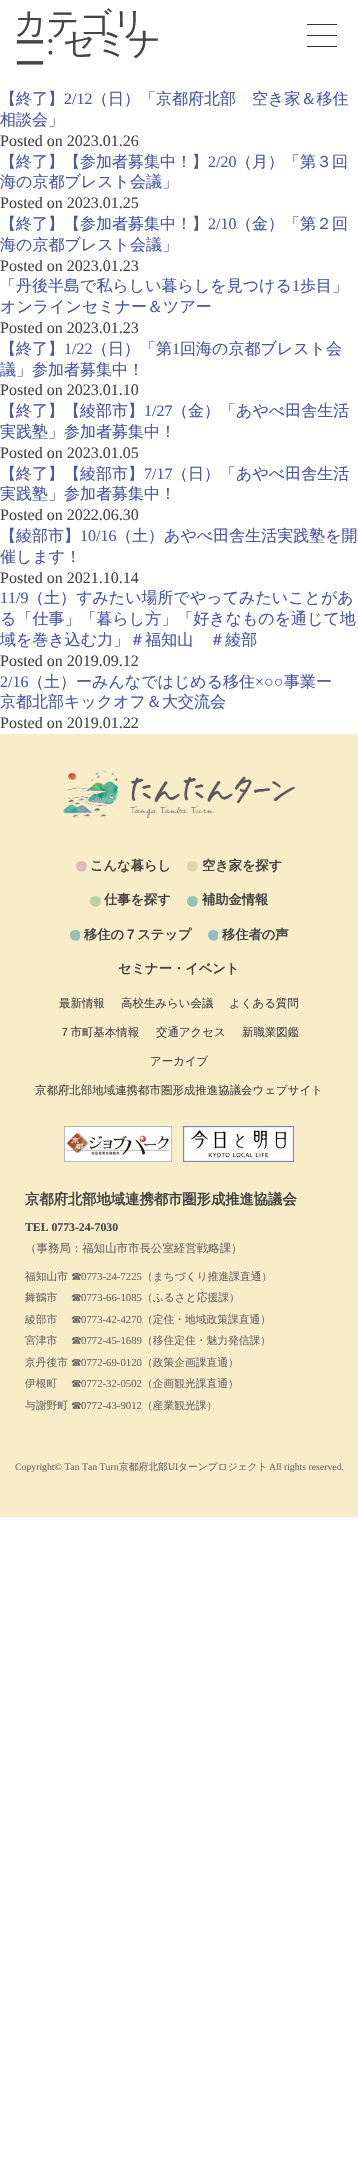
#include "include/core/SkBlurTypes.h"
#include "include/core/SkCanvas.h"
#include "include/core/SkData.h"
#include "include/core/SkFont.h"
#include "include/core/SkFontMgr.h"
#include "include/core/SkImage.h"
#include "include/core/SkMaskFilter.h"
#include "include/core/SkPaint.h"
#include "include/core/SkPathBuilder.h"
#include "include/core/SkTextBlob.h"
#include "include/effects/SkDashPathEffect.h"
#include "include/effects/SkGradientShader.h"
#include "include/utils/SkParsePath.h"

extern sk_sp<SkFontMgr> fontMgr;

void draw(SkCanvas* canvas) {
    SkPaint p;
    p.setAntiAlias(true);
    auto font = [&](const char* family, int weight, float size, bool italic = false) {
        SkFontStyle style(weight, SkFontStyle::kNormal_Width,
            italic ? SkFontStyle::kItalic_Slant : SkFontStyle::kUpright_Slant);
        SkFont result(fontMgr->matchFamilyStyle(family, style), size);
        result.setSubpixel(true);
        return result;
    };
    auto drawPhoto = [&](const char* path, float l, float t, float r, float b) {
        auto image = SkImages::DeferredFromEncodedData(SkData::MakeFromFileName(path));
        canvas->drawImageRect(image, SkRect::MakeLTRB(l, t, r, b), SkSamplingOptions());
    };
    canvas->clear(0xFFFFFFFF);
    auto font1 = font("WenQuanYi Zen Hei", 500, 32);
    p.setColor(0xFF444444);
    canvas->drawString("カテゴリ", 14, 34, font1, p);
    canvas->drawString("ー", 14, 54, font1, p);
    auto font2 = font("Liberation Serif", 400, 32);
    canvas->drawString(":", 46, 54, font2, p);
    canvas->drawString("セミナ", 63, 54, font1, p);
    canvas->drawString("ー", 14, 75, font1, p);
    auto font3 = font("WenQuanYi Zen Hei", 500, 16);
    p.setColor(0xFF49569F);
    canvas->drawString("【終了】", 0, 104, font3, p);
    auto font4 = font("Liberation Serif", 400, 16);
    canvas->drawString("2/12", 64, 104, font4, p);
    canvas->drawString("（日）「京都府北部　空き家＆移住", 92, 104, font3, p);
    canvas->drawString("相談会」", 0, 125, font3, p);
    p.setColor(0xFF444444);
    canvas->drawString("Posted on 2023.01.26", 0, 146, font4, p);
    p.setColor(0xFF49569F);
    canvas->drawString("【終了】【参加者募集中！】", 0, 167, font3, p);
    canvas->drawString("2/20", 208, 167, font4, p);
    canvas->drawString("（月）「第３回", 236, 167, font3, p);
    canvas->drawString("海の京都ブレスト会議」", 0, 187, font3, p);
    p.setColor(0xFF444444);
    canvas->drawString("Posted on 2023.01.25", 0, 208, font4, p);
    p.setColor(0xFF49569F);
    canvas->drawString("【終了】【参加者募集中！】", 0, 229, font3, p);
    canvas->drawString("2/10", 208, 229, font4, p);
    canvas->drawString("（金）「第２回", 236, 229, font3, p);
    canvas->drawString("海の京都ブレスト会議」", 0, 250, font3, p);
    p.setColor(0xFF444444);
    canvas->drawString("Posted on 2023.01.23", 0, 271, font4, p);
    p.setColor(0xFF49569F);
    canvas->drawString("「丹後半島で私らしい暮らしを見つける", 0, 291, font3, p);
    canvas->drawString("1", 292, 291, font4, p);
    canvas->drawString("歩目」", 300, 291, font3, p);
    canvas->drawString("オンラインセミナー＆ツアー", 0, 312, font3, p);
    p.setColor(0xFF444444);
    canvas->drawString("Posted on 2023.01.23", 0, 333, font4, p);
    p.setColor(0xFF49569F);
    canvas->drawString("【終了】", 0, 354, font3, p);
    canvas->drawString("1/22", 64, 354, font4, p);
    canvas->drawString("（日）「第", 92, 354, font3, p);
    canvas->drawString("1", 172, 354, font4, p);
    canvas->drawString("回海の京都ブレスト会", 180, 354, font3, p);
    canvas->drawString("議」参加者募集中！", 0, 375, font3, p);
    p.setColor(0xFF444444);
    canvas->drawString("Posted on 2023.01.10", 0, 395, font4, p);
    p.setColor(0xFF49569F);
    canvas->drawString("【終了】【綾部市】", 0, 416, font3, p);
    canvas->drawString("1/27", 144, 416, font4, p);
    canvas->drawString("（金）「あやべ田舎生活", 172, 416, font3, p);
    canvas->drawString("実践塾」参加者募集中！", 0, 437, font3, p);
    p.setColor(0xFF444444);
    canvas->drawString("Posted on 2023.01.05", 0, 458, font4, p);
    p.setColor(0xFF49569F);
    canvas->drawString("【終了】【綾部市】", 0, 479, font3, p);
    canvas->drawString("7/17", 144, 479, font4, p);
    canvas->drawString("（日）「あやべ田舎生活", 172, 479, font3, p);
    canvas->drawString("実践塾」参加者募集中！", 0, 499, font3, p);
    p.setColor(0xFF444444);
    canvas->drawString("Posted on 2022.06.30", 0, 520, font4, p);
    p.setColor(0xFF49569F);
    canvas->drawString("【綾部市】", 0, 541, font3, p);
    canvas->drawString("10/16", 80, 541, font4, p);
    canvas->drawString("（土）あやべ田舎生活実践塾を開", 116, 541, font3, p);
    canvas->drawString("催します！", 0, 562, font3, p);
    p.setColor(0xFF444444);
    canvas->drawString("Posted on 2021.10.14", 0, 583, font4, p);
    p.setColor(0xFF49569F);
    canvas->drawString("11/9", 0, 603, font4, p);
    {
        const struct { const char* s; float x, y; } items[] = {
            {"（土）すみたい場所でやってみたいことがあ", 28, 603},
            {"る「仕事」「暮らし方」「好きなものを通じて地", 0, 624},
            {"域を巻き込む力」＃福知山　＃綾部", 0, 645},
        };
        for (auto [s, x, y] : items) {
            canvas->drawString(s, x, y, font3, p);
        }
    }
    p.setColor(0xFF444444);
    canvas->drawString("Posted on 2019.09.12", 0, 666, font4, p);
    p.setColor(0xFF49569F);
    canvas->drawString("2/16", 0, 687, font4, p);
    canvas->drawString("（土）ーみんなではじめる移住", 28, 687, font3, p);
    canvas->drawString("×○○", 255, 687, font4, p);
    canvas->drawString("事業ー", 284, 687, font3, p);
    canvas->drawString("京都北部キックオフ＆大交流会", 0, 707, font3, p);
    p.setColor(0xFF444444);
    canvas->drawString("Posted on 2019.01.22", 0, 728, font4, p);
    {
        const struct { float l, t, r, b; SkColor color; } items[] = {
            {307, 24, 337, 25, 0xFF333333},
            {307, 35, 337, 36, 0xFF333333},
            {307, 46, 337, 47, 0xFF333333},
            {0, 734, 358, 1517, 0xFFF8EDC9},
        };
        for (auto [l, t, r, b, color] : items) {
            p.setColor(color);
            canvas->drawRect(SkRect::MakeLTRB(l, t, r, b), p);
        }
    }
    drawPhoto("media/1.png", 63, 770, 295, 820);
    drawPhoto("media/2.png", 76, 861, 87, 872);
    auto font5 = font("WenQuanYi Zen Hei", 700, 13.25f);
    p.setColor(0xFF444444);
    canvas->drawString("こんな暮らし", 90, 870, font5, p);
    drawPhoto("media/3.png", 187, 861, 198, 872);
    canvas->drawString("空き家を探す", 202, 870, font5, p);
    drawPhoto("media/4.png", 90, 896, 101, 907);
    canvas->drawString("仕事を探す", 104, 904, font5, p);
    drawPhoto("media/5.png", 187, 896, 198, 907);
    canvas->drawString("補助金情報", 202, 904, font5, p);
    drawPhoto("media/6.png", 70, 930, 80, 941);
    canvas->drawString("移住の７ステップ", 84, 939, font5, p);
    drawPhoto("media/7.png", 208, 930, 218, 941);
    canvas->drawString("移住者の声", 222, 939, font5, p);
    canvas->drawString("セミナー・イベント", 118, 973, font5, p);
    auto font6 = font("WenQuanYi Zen Hei", 500, 11.45f);
    {
        const struct { const char* s; float x, y; } items[] = {
            {"最新情報", 59, 1007},
            {"高校生みらい会議", 121, 1007},
            {"よくある質問", 229, 1007},
            {"７市町基本情報", 59, 1036},
            {"交通アクセス", 156, 1036},
            {"新職業図鑑", 242, 1036},
            {"アーカイブ", 150, 1065},
            {"京都府北部地域連携都市圏形成推進協議会ウェブサイト", 35, 1094},
        };
        for (auto [s, x, y] : items) {
            canvas->drawString(s, x, y, font6, p);
        }
    }
    drawPhoto("media/8.png", 64, 1126, 172, 1162);
    drawPhoto("media/9.png", 183, 1126, 294, 1162);
    auto font7 = font("WenQuanYi Zen Hei", 700, 14.3f);
    canvas->drawString("京都府北部地域連携都市圏形成推進協議会", 25, 1204, font7, p);
    auto font8 = font("Liberation Serif", 700, 11.75f);
    canvas->drawString("TEL 0773‐24-7030", 25, 1231, font8, p);
    p.setColor(0xFF666666);
    canvas->drawString("（事務局：福知山市市長公室経営戦略課）", 25, 1252, font6, p);
    auto font9 = font("WenQuanYi Zen Hei", 500, 10.75f);
    canvas->drawString("福知山市", 25, 1280, font9, p);
    canvas->drawString("☎", 71, 1280, font9, p);
    auto font10 = font("Liberation Serif", 400, 10.75f);
    canvas->drawString("0773-24-7225", 81, 1280, font10, p);
    {
        const struct { const char* s; float x, y; } items[] = {
            {"（まちづくり推進課直通）", 142, 1280},
            {"舞鶴市", 25, 1301},
            {"☎", 71, 1301},
        };
        for (auto [s, x, y] : items) {
            canvas->drawString(s, x, y, font9, p);
        }
    }
    canvas->drawString("0773-66-1085", 81, 1301, font10, p);
    {
        const struct { const char* s; float x, y; } items[] = {
            {"（ふるさと応援課）", 142, 1301},
            {"綾部市", 25, 1323},
            {"☎", 71, 1323},
        };
        for (auto [s, x, y] : items) {
            canvas->drawString(s, x, y, font9, p);
        }
    }
    canvas->drawString("0773-42-4270", 81, 1323, font10, p);
    {
        const struct { const char* s; float x, y; } items[] = {
            {"（定住・地域政策課直通）", 142, 1323},
            {"宮津市", 25, 1344},
            {"☎", 71, 1344},
        };
        for (auto [s, x, y] : items) {
            canvas->drawString(s, x, y, font9, p);
        }
    }
    canvas->drawString("0772-45-1689", 81, 1344, font10, p);
    {
        const struct { const char* s; float x, y; } items[] = {
            {"（移住定住・魅力発信課）", 142, 1344},
            {"京丹後市", 25, 1366},
            {"☎", 71, 1366},
        };
        for (auto [s, x, y] : items) {
            canvas->drawString(s, x, y, font9, p);
        }
    }
    canvas->drawString("0772-69-0120", 81, 1366, font10, p);
    {
        const struct { const char* s; float x, y; } items[] = {
            {"（政策企画課直通）", 142, 1366},
            {"伊根町", 25, 1387},
            {"☎", 71, 1387},
        };
        for (auto [s, x, y] : items) {
            canvas->drawString(s, x, y, font9, p);
        }
    }
    canvas->drawString("0772-32-0502", 81, 1387, font10, p);
    {
        const struct { const char* s; float x, y; } items[] = {
            {"（企画観光課直通）", 142, 1387},
            {"与謝野町", 25, 1409},
            {"☎", 71, 1409},
        };
        for (auto [s, x, y] : items) {
            canvas->drawString(s, x, y, font9, p);
        }
    }
    canvas->drawString("0772-43-9012", 81, 1409, font10, p);
    canvas->drawString("（産業観光課）", 142, 1409, font9, p);
    auto font11 = font("Liberation Serif", 400, 9.75f);
    canvas->drawString("Copyright© Tan Tan Turn", 15, 1470, font11, p);
    auto font12 = font("WenQuanYi Zen Hei", 500, 9.75f);
    canvas->drawString("京都府北部", 119, 1470, font12, p);
    canvas->drawString("UI", 168, 1470, font11, p);
    canvas->drawString("ターンプロジェクト", 178, 1470, font12, p);
    canvas->drawString("All rights reserved.", 269, 1470, font11, p);
}
